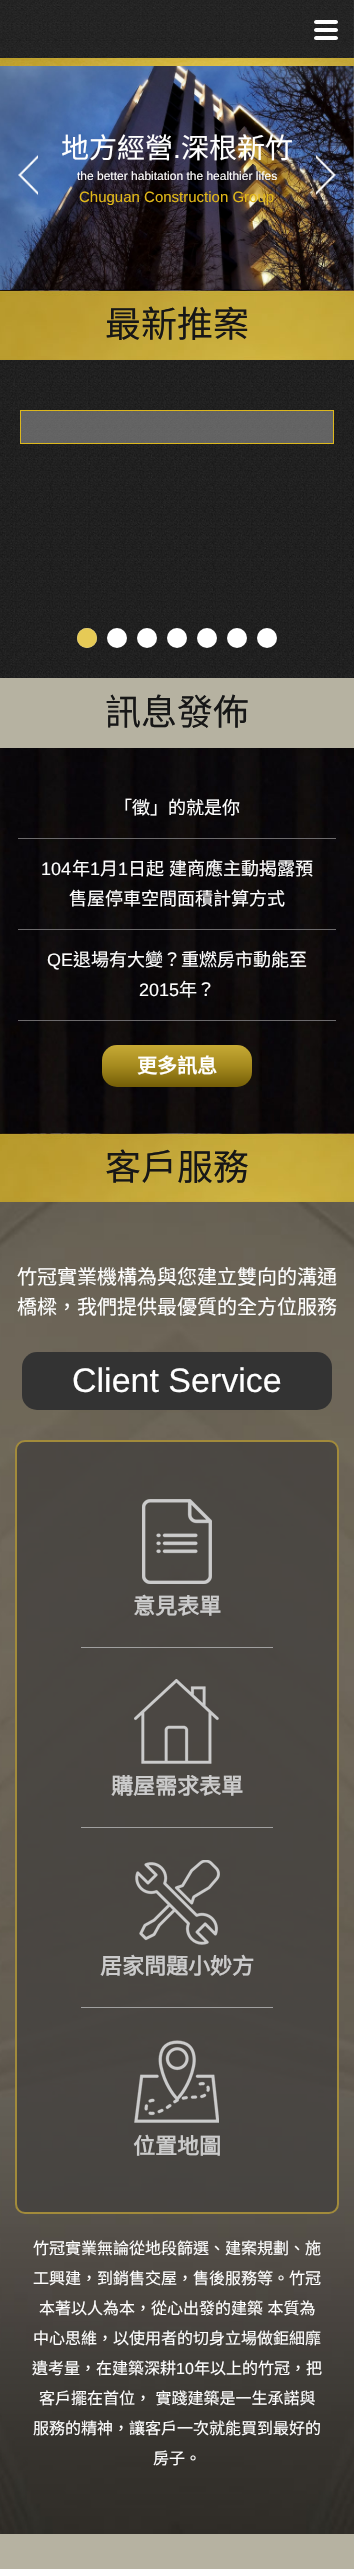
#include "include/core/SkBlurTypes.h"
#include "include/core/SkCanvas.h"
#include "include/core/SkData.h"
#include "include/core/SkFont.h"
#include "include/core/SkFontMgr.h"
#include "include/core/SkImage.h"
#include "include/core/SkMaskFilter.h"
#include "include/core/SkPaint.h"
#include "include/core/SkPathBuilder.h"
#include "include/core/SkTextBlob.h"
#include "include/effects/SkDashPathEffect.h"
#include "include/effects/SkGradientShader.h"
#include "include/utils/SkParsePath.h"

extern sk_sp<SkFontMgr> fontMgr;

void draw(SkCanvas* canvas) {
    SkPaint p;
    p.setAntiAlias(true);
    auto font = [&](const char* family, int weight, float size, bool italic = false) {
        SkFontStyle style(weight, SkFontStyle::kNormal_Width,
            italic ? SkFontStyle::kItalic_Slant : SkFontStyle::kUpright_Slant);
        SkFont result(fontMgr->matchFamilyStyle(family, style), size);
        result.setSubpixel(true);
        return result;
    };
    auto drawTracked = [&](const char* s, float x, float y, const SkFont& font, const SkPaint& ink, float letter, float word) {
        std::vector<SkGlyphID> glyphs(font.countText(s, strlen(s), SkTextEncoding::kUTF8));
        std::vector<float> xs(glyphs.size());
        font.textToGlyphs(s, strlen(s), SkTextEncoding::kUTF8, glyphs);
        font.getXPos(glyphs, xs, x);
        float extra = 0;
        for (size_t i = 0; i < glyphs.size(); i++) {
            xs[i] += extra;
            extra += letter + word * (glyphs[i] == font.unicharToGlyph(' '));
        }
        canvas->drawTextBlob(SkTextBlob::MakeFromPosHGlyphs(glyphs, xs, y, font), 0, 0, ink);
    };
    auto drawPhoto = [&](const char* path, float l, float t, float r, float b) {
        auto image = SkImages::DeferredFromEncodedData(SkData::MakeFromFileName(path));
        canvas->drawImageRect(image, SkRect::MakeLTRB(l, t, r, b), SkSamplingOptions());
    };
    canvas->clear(0xFFFFFFFF);
    drawPhoto("media/2.png", 0, 60, 354, 290);
    drawPhoto("media/1.png", 0, 0, 354, 66);
    p.setColor(0xFFFFFFFF);
    canvas->drawPath(SkPathBuilder().moveTo(336, 32).lineTo(316, 32).cubicTo(315, 32, 314, 31, 314, 30).cubicTo(314, 29, 315, 28, 316, 28).lineTo(336, 28).cubicTo(337, 28, 338, 29, 338, 30).cubicTo(338, 31, 337, 32, 336, 32).close().moveTo(336, 40).lineTo(316, 40).cubicTo(315, 40, 314, 39, 314, 38).cubicTo(314, 37, 315, 36, 316, 36).lineTo(336, 36).cubicTo(337, 36, 338, 37, 338, 38).cubicTo(338, 39, 337, 40, 336, 40).close().moveTo(336, 24).lineTo(316, 24).cubicTo(315, 24, 314, 23, 314, 22).cubicTo(314, 21, 315, 20, 316, 20).lineTo(336, 20).cubicTo(337, 20, 338, 21, 338, 22).cubicTo(338, 23, 337, 24, 336, 24).close().detach(), p);
    auto font1 = font("Noto Sans CJK TC", 400, 28);
    canvas->drawString("地方經營", 61, 158, font1, p);
    auto font2 = font("Liberation Sans", 400, 28);
    canvas->drawString(".", 173, 158, font2, p);
    canvas->drawString("深根新竹", 181, 158, font1, p);
    auto font3 = font("Liberation Sans", 400, 12);
    canvas->drawString("the better habitation the healthier lifes", 77, 180, font3, p);
    auto font4 = font("Liberation Sans", 400, 15);
    p.setColor(0xFFE1B819);
    canvas->drawString("Chuguan Construction Group", 79, 202, font4, p);
    drawPhoto("media/3.png", 18, 155, 38, 195);
    drawPhoto("media/4.png", 316, 155, 336, 195);
    drawPhoto("media/5.png", 0, 360, 354, 678);
    drawPhoto("media/6.png", 0, 290, 354, 360);
    auto font5 = font("Noto Sans CJK TC", 400, 36);
    p.setColor(0xFF171717);
    canvas->drawString("最新推案", 105, 337, font5, p);
    drawPhoto("media/7.png", 21, 411, 333, 443);
    p.setStyle(SkPaint::kStroke_Style);
    p.setStrokeWidth(1);
    p.setColor(0xFFDDB81D);
    canvas->drawRect(SkRect::MakeLTRB(20.5f, 410.5f, 333.5f, 443.5f), p);
    p.setStyle(SkPaint::kFill_Style);
    p.setColor(0xFFFFFFFF);
    canvas->drawCircle(87, 638, 10, p);
    p.setColor(0xBFDDB81D);
    canvas->drawCircle(87, 638, 10, p);
    p.setColor(0xFFFFFFFF);
    canvas->drawCircle(117, 638, 10, p);
    canvas->drawCircle(147, 638, 10, p);
    canvas->drawCircle(177, 638, 10, p);
    canvas->drawCircle(207, 638, 10, p);
    canvas->drawCircle(237, 638, 10, p);
    canvas->drawCircle(267, 638, 10, p);
    drawPhoto("media/8.png", 0, 748, 354, 1133);
    p.setColor(0xFFB6B2A1);
    canvas->drawRect(SkRect::MakeLTRB(0, 678, 354, 748), p);
    p.setColor(0xFF171717);
    canvas->drawString("訊息發佈", 105, 725, font5, p);
    p.setColor(0xFF6D6B6D);
    canvas->drawRect(SkRect::MakeLTRB(18, 838, 336, 839), p);
    auto font6 = font("Noto Sans CJK TC", 400, 18);
    p.setColor(0xFFFFFFFF);
    canvas->drawString("「徵」的就是你", 114, 814, font6, p);
    p.setColor(0xFF6D6B6D);
    canvas->drawRect(SkRect::MakeLTRB(18, 929, 336, 930), p);
    auto font7 = font("Liberation Sans", 400, 18);
    p.setColor(0xFFFFFFFF);
    canvas->drawString("104", 41, 875, font7, p);
    canvas->drawString("年", 72, 875, font6, p);
    canvas->drawString("1", 90, 875, font7, p);
    canvas->drawString("月", 100, 875, font6, p);
    canvas->drawString("1", 118, 875, font7, p);
    drawTracked("日起 建商應主動揭露預", 128, 875, font6, p, 0, 1);
    canvas->drawString("售屋停車空間面積計算方式", 69, 905, font6, p);
    p.setColor(0xFF6D6B6D);
    canvas->drawRect(SkRect::MakeLTRB(18, 1020, 336, 1021), p);
    p.setColor(0xFFFFFFFF);
    canvas->drawString("QE", 47, 966, font7, p);
    canvas->drawString("退場有大變？重燃房市動能至", 73, 966, font6, p);
    canvas->drawString("2015", 139, 996, font7, p);
    canvas->drawString("年？", 179, 996, font6, p);
    {
        const SkColor colors[] = {0xFFC7AA35, 0xFFA58A1E, 0xFF735D07};
        const float stops[] = {0, 0.5f, 1};
        const SkPoint ends[] = {{177, 1045}, {177, 1087}};
        p.setShader(SkGradientShader::MakeLinear(ends, colors, stops, 3, SkTileMode::kClamp));
        p.setAlpha(255);
    }
    canvas->drawRoundRect(SkRect::MakeLTRB(102, 1045, 252, 1087), 15, 15, p);
    auto font8 = font("Noto Sans CJK TC", 700, 20);
    p.setShader(nullptr);
    p.setColor(0xFFFFFFFF);
    canvas->drawString("更多訊息", 137, 1073, font8, p);
    drawPhoto("media/9.png", 0, 1202, 354, 2534);
    drawPhoto("media/10.png", 0, 1133, 354, 1202);
    p.setColor(0xFF171717);
    canvas->drawString("客戶服務", 105, 1180, font5, p);
    auto font9 = font("Noto Sans CJK TC", 400, 20);
    p.setColor(0xFFFFFFFF);
    canvas->drawString("竹冠實業機構為與您建立雙向的溝通", 17, 1284, font9, p);
    canvas->drawString("橋樑，我們提供最優質的全方位服務", 17, 1314, font9, p);
    p.setColor(0xFF333333);
    canvas->drawRoundRect(SkRect::MakeLTRB(22, 1352, 332, 1410), 15, 15, p);
    auto font10 = font("Liberation Sans", 400, 34);
    p.setColor(0xFFFFFFFF);
    canvas->drawString("Client Service", 72, 1392, font10, p);
    p.setColor(0xCC42403D);
    canvas->drawRoundRect(SkRect::MakeLTRB(16, 1441, 338, 2213), 9, 9, p);
    p.setStyle(SkPaint::kStroke_Style);
    p.setStrokeWidth(2);
    p.setColor(0xFFA28B3B);
    canvas->drawRoundRect(SkRect::MakeLTRB(16, 1441, 338, 2213), 9, 9, p);
    drawPhoto("media/11.png", 142, 1499, 212, 1584);
    auto font11 = font("Noto Sans CJK TC", 700, 22);
    p.setStyle(SkPaint::kFill_Style);
    p.setColor(0xFFCBCBCB);
    canvas->drawString("意見表單", 133, 1614, font11, p);
    p.setColor(0xFFA0A0A0);
    canvas->drawRect(SkRect::MakeLTRB(81, 1647, 273, 1648), p);
    drawPhoto("media/12.png", 134, 1679, 219, 1764);
    p.setColor(0xFFCBCBCB);
    canvas->drawString("購屋需求表單", 111, 1794, font11, p);
    p.setColor(0xFFA0A0A0);
    canvas->drawRect(SkRect::MakeLTRB(81, 1827, 273, 1828), p);
    drawPhoto("media/13.png", 135, 1860, 220, 1945);
    p.setColor(0xFFCBCBCB);
    canvas->drawString("居家問題小妙方", 100, 1974, font11, p);
    p.setColor(0xFFA0A0A0);
    canvas->drawRect(SkRect::MakeLTRB(81, 2007, 273, 2008), p);
    drawPhoto("media/14.png", 134, 2040, 219, 2123);
    p.setColor(0xFFCBCBCB);
    canvas->drawString("位置地圖", 133, 2154, font11, p);
    auto font12 = font("Noto Sans CJK TC", 400, 16);
    p.setColor(0xFFFFFFFF);
    canvas->drawString("竹冠實業無論從地段篩選、建案規劃、施", 33, 2254, font12, p);
    canvas->drawString("工興建，到銷售交屋，售後服務等。竹冠", 33, 2284, font12, p);
    drawTracked("本著以人為本，從心出發的建築 本質為", 39, 2314, font12, p, 0, 1);
    canvas->drawString("中心思維，以使用者的切身立場做鉅細靡", 33, 2344, font12, p);
    canvas->drawString("遺考量，在建築深耕", 32, 2374, font12, p);
    auto font13 = font("Liberation Sans", 400, 16);
    canvas->drawString("10", 176, 2374, font13, p);
    canvas->drawString("年以上的竹冠，把", 194, 2374, font12, p);
    drawTracked("客戶擺在首位， 實踐建築是一生承諾與", 39, 2404, font12, p, 0, 1);
    canvas->drawString("服務的精神，讓客戶一次就能買到最好的", 33, 2434, font12, p);
    canvas->drawString("房子。", 153, 2464, font12, p);
    p.setColor(0xFFB6B2A1);
    canvas->drawRect(SkRect::MakeLTRB(0, 2534, 354, 2569), p);
}
